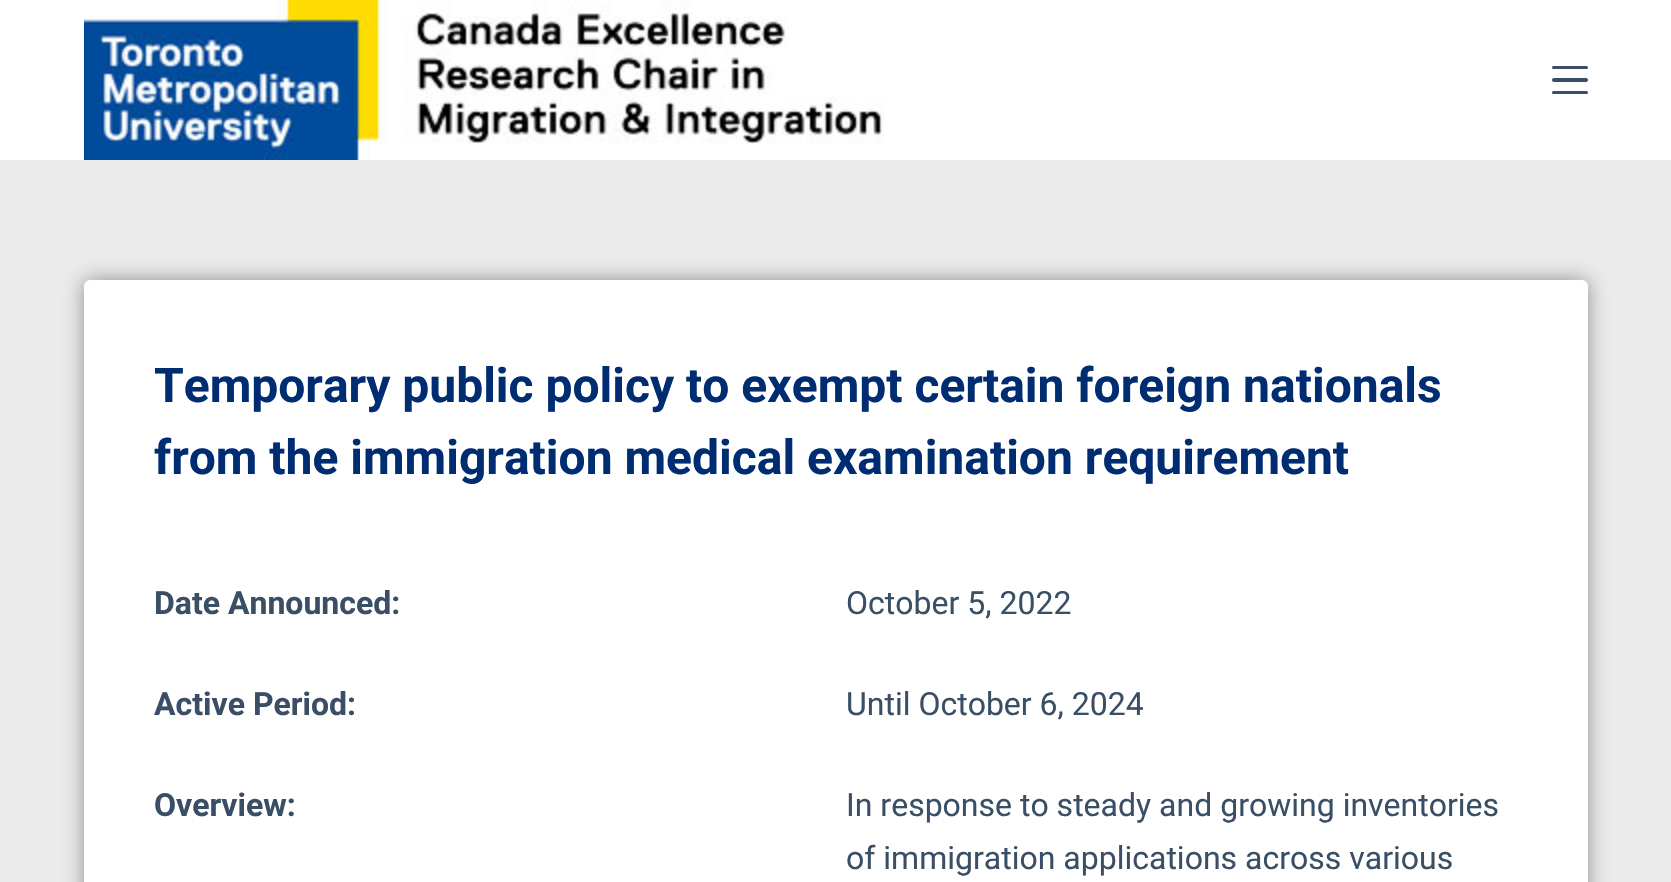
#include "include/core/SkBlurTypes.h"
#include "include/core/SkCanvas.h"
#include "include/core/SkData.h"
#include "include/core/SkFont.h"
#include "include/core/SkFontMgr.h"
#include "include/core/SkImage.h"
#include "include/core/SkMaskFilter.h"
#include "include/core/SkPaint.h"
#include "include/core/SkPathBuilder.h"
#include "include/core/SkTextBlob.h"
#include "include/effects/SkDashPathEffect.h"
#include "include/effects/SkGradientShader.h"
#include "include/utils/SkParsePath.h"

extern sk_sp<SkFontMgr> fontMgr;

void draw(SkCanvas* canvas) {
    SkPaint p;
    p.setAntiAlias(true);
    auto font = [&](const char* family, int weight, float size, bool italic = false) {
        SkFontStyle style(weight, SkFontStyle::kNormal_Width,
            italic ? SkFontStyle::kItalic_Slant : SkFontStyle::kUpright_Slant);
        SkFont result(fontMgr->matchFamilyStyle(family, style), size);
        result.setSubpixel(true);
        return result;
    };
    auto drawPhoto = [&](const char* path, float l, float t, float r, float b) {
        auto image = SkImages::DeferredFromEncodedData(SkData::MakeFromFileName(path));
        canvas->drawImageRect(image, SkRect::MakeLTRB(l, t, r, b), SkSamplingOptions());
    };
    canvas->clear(0xFFEBEBEB);
    p.setColor(0xFFFFFFFF);
    canvas->drawRect(SkRect::MakeLTRB(0, 0, 1671, 160), p);
    drawPhoto("media/1.png", 84, 0, 884, 160);
    p.setColor(0xFF3A4F66);
    canvas->drawRoundRect(SkRect::MakeLTRB(1552, 66, 1588, 69), 1.5f, 1.5f, p);
    canvas->drawRoundRect(SkRect::MakeLTRB(1552, 78, 1588, 82), 2, 2, p);
    canvas->drawRoundRect(SkRect::MakeLTRB(1552, 91, 1588, 94), 1.5f, 1.5f, p);
    p.setColor(0x66000000);
    p.setMaskFilter(SkMaskFilter::MakeBlur(kNormal_SkBlurStyle, 10));
    canvas->drawRoundRect(SkRect::MakeLTRB(84, 280, 1588, 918), 6, 6, p);
    p.setMaskFilter(nullptr);
    p.setColor(0xFFFFFFFF);
    canvas->drawRoundRect(SkRect::MakeLTRB(84, 280, 1588, 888), 6, 6, p);
    auto font1 = font("Roboto", 700, 48);
    p.setColor(0xFF002D72);
    canvas->drawString("Temporary public policy to exempt certain foreign nationals", 154, 402, font1, p);
    canvas->drawString("from the immigration medical examination requirement", 154, 474, font1, p);
    auto font2 = font("Roboto", 700, 32);
    p.setColor(0xFF3A4F66);
    canvas->drawString("Date Announced:", 154, 614, font2, p);
    auto font3 = font("Roboto", 400, 32);
    canvas->drawString("October 5, 2022", 846, 614, font3, p);
    canvas->drawString("Active Period:", 154, 715, font2, p);
    canvas->drawString("Until October 6, 2024", 846, 715, font3, p);
    canvas->drawString("Overview:", 154, 816, font2, p);
    canvas->drawString("In response to steady and growing inventories", 846, 816, font3, p);
    canvas->drawString("of immigration applications across various", 846, 869, font3, p);
}
